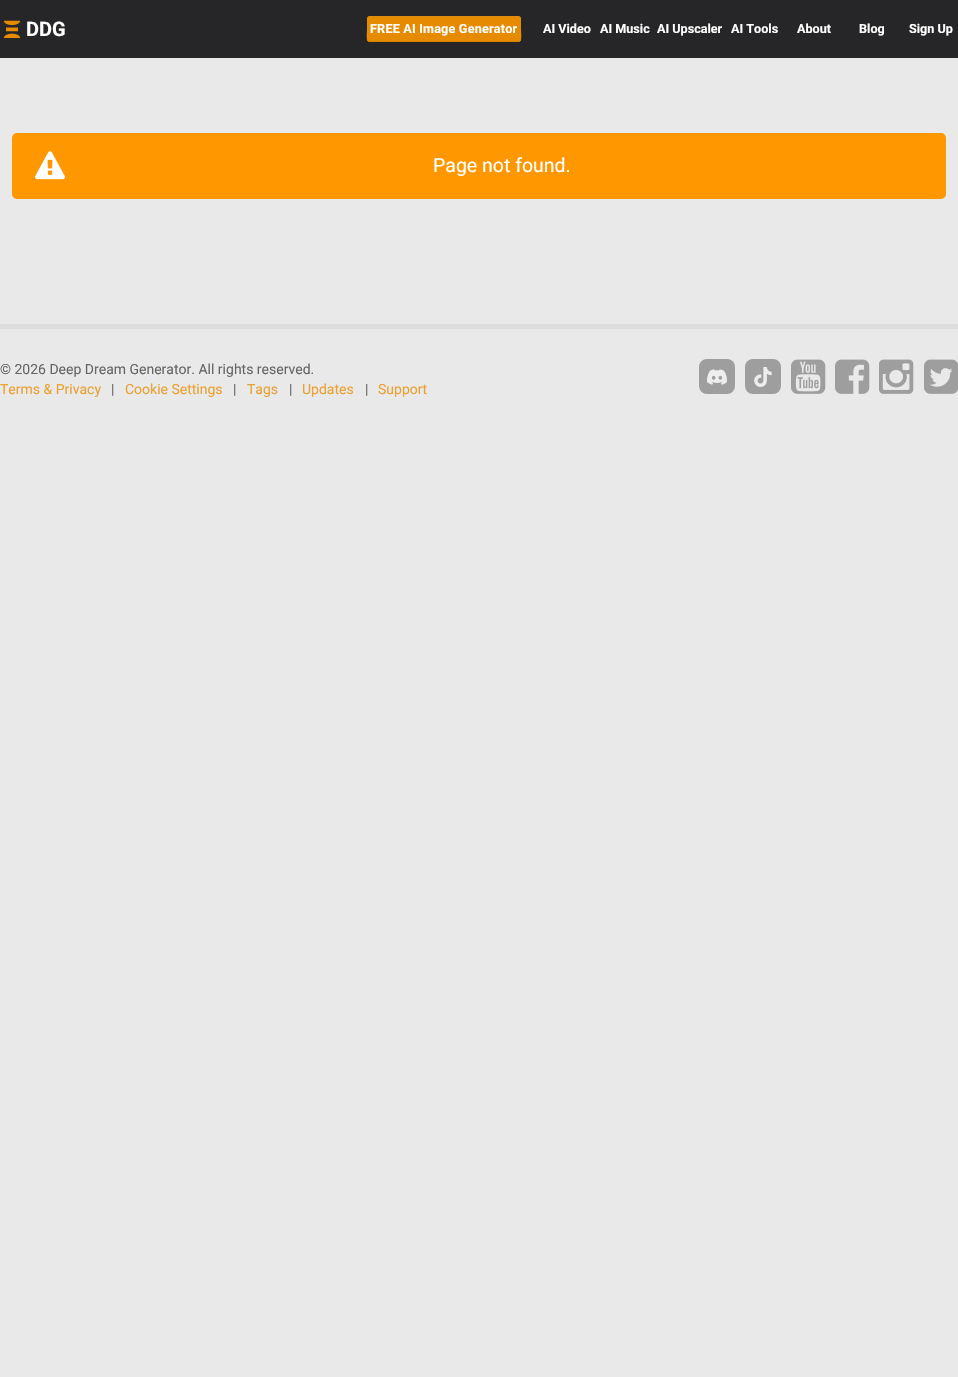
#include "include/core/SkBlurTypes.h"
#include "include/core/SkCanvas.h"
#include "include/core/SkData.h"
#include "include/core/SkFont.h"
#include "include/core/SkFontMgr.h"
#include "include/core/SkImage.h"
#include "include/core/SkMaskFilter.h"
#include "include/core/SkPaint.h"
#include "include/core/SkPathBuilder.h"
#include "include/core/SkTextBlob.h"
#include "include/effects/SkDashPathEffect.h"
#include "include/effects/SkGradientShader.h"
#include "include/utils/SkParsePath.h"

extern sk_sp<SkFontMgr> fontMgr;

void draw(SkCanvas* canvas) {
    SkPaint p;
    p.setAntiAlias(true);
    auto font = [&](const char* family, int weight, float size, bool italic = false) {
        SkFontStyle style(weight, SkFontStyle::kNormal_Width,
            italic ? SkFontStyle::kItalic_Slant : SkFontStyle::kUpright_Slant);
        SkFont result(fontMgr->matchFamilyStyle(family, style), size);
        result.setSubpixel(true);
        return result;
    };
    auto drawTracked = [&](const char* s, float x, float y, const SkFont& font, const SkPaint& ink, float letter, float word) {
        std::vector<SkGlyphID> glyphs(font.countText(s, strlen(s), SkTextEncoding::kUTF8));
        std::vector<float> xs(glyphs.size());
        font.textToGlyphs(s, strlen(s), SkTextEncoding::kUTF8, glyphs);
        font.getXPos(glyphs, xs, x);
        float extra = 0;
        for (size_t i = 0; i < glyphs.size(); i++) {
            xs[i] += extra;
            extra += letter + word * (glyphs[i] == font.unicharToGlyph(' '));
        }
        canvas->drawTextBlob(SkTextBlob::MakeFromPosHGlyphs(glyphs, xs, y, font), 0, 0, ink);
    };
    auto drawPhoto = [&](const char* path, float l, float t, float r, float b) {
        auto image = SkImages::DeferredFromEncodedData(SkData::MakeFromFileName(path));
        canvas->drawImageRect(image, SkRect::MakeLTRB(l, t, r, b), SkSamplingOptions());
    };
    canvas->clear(0xFFE9E9E9);
    p.setColor(0xFF262628);
    canvas->drawRect(SkRect::MakeLTRB(0, 0, 958, 58), p);
    drawPhoto("media/1.png", 3, 20, 21, 38);
    auto font1 = font("Roboto", 700, 20);
    p.setColor(0xFFFFFFFF);
    canvas->drawString("DDG", 26, 36, font1, p);
    p.setColor(0xFFE68A00);
    canvas->drawRoundRect(SkRect::MakeLTRB(367, 16, 521, 42), 3, 3, p);
    p.setStyle(SkPaint::kStroke_Style);
    p.setStrokeWidth(1);
    p.setColor(0xFFD68400);
    canvas->drawPath(SkPathBuilder().moveTo(520, 41).lineTo(518, 41.5f).lineTo(370, 41.5f).lineTo(368, 41).detach(), p);
    p.setColor(0xFFDD8E11);
    canvas->drawPath(SkPathBuilder().moveTo(368, 41).cubicTo(366.5f, 39, 367.5f, 31.5f, 367.5f, 29).lineTo(367.5f, 22.5f).cubicTo(367.5f, 20.5f, 367, 16.5f, 370, 16.5f).lineTo(518, 16.5f).cubicTo(521, 16.5f, 520.5f, 20.5f, 520.5f, 22.5f).lineTo(520.5f, 29).cubicTo(520.5f, 31.5f, 521.5f, 39, 520, 41).detach(), p);
    auto font2 = font("Roboto", 700, 12.6f);
    p.setStyle(SkPaint::kFill_Style);
    p.setColor(0xFFFFFFFF);
    drawTracked("FREE AI Image Generator", 370, 33, font2, p, 0.2f, 0);
    {
        const struct { const char* s; float x, y; } items[] = {
            {"AI Video", 543, 33},
            {"AI Music", 600, 33},
            {"AI Upscaler", 657, 33},
            {"AI Tools", 731, 33},
            {"About", 797, 33},
            {"Blog", 859, 33},
            {"Sign Up", 909, 33},
        };
        for (auto [s, x, y] : items) {
            canvas->drawString(s, x, y, font2, p);
        }
    }
    p.setColor(0xFFFE9700);
    canvas->drawRoundRect(SkRect::MakeLTRB(12, 133, 946, 199), 5, 5, p);
    drawPhoto("media/2.png", 35, 151, 65, 180);
    auto font3 = font("Roboto", 400, 19.5f);
    p.setColor(0xFFFFFFFF);
    canvas->drawString("Page not found.", 433, 172, font3, p);
    p.setColor(0xFFDDDDDD);
    canvas->drawRect(SkRect::MakeLTRB(0, 324, 958, 329), p);
    auto font4 = font("Roboto", 400, 14);
    p.setColor(0xFF666666);
    canvas->drawString("© 2026 Deep Dream Generator. All rights reserved.", 0, 374, font4, p);
    p.setColor(0xFFEBA133);
    canvas->drawString("Terms & Privacy", 0, 394, font4, p);
    p.setColor(0xFF666666);
    canvas->drawString("|", 111, 394, font4, p);
    p.setColor(0xFFEBA133);
    canvas->drawString("Cookie Settings", 125, 394, font4, p);
    p.setColor(0xFF666666);
    canvas->drawString("|", 233, 394, font4, p);
    p.setColor(0xFFEBA133);
    canvas->drawString("Tags", 247, 394, font4, p);
    p.setColor(0xFF666666);
    canvas->drawString("|", 289, 394, font4, p);
    p.setColor(0xFFEBA133);
    canvas->drawString("Updates", 302, 394, font4, p);
    p.setColor(0xFF666666);
    canvas->drawString("|", 365, 394, font4, p);
    p.setColor(0xFFEBA133);
    canvas->drawString("Support", 378, 394, font4, p);
    p.setColor(0xFF9E9E9E);
    canvas->drawRoundRect(SkRect::MakeLTRB(699, 359, 735, 394), 8, 8, p);
    drawPhoto("media/3.png", 707, 369, 727, 385);
    canvas->drawRoundRect(SkRect::MakeLTRB(745, 359, 781, 394), 8, 8, p);
    drawPhoto("media/4.png", 754, 367, 772, 387);
    drawPhoto("media/5.png", 791, 359, 826, 394);
    drawPhoto("media/6.png", 835, 359, 870, 394);
    drawPhoto("media/7.png", 879, 359, 914, 394);
    drawPhoto("media/8.png", 924, 359, 958, 394);
}
